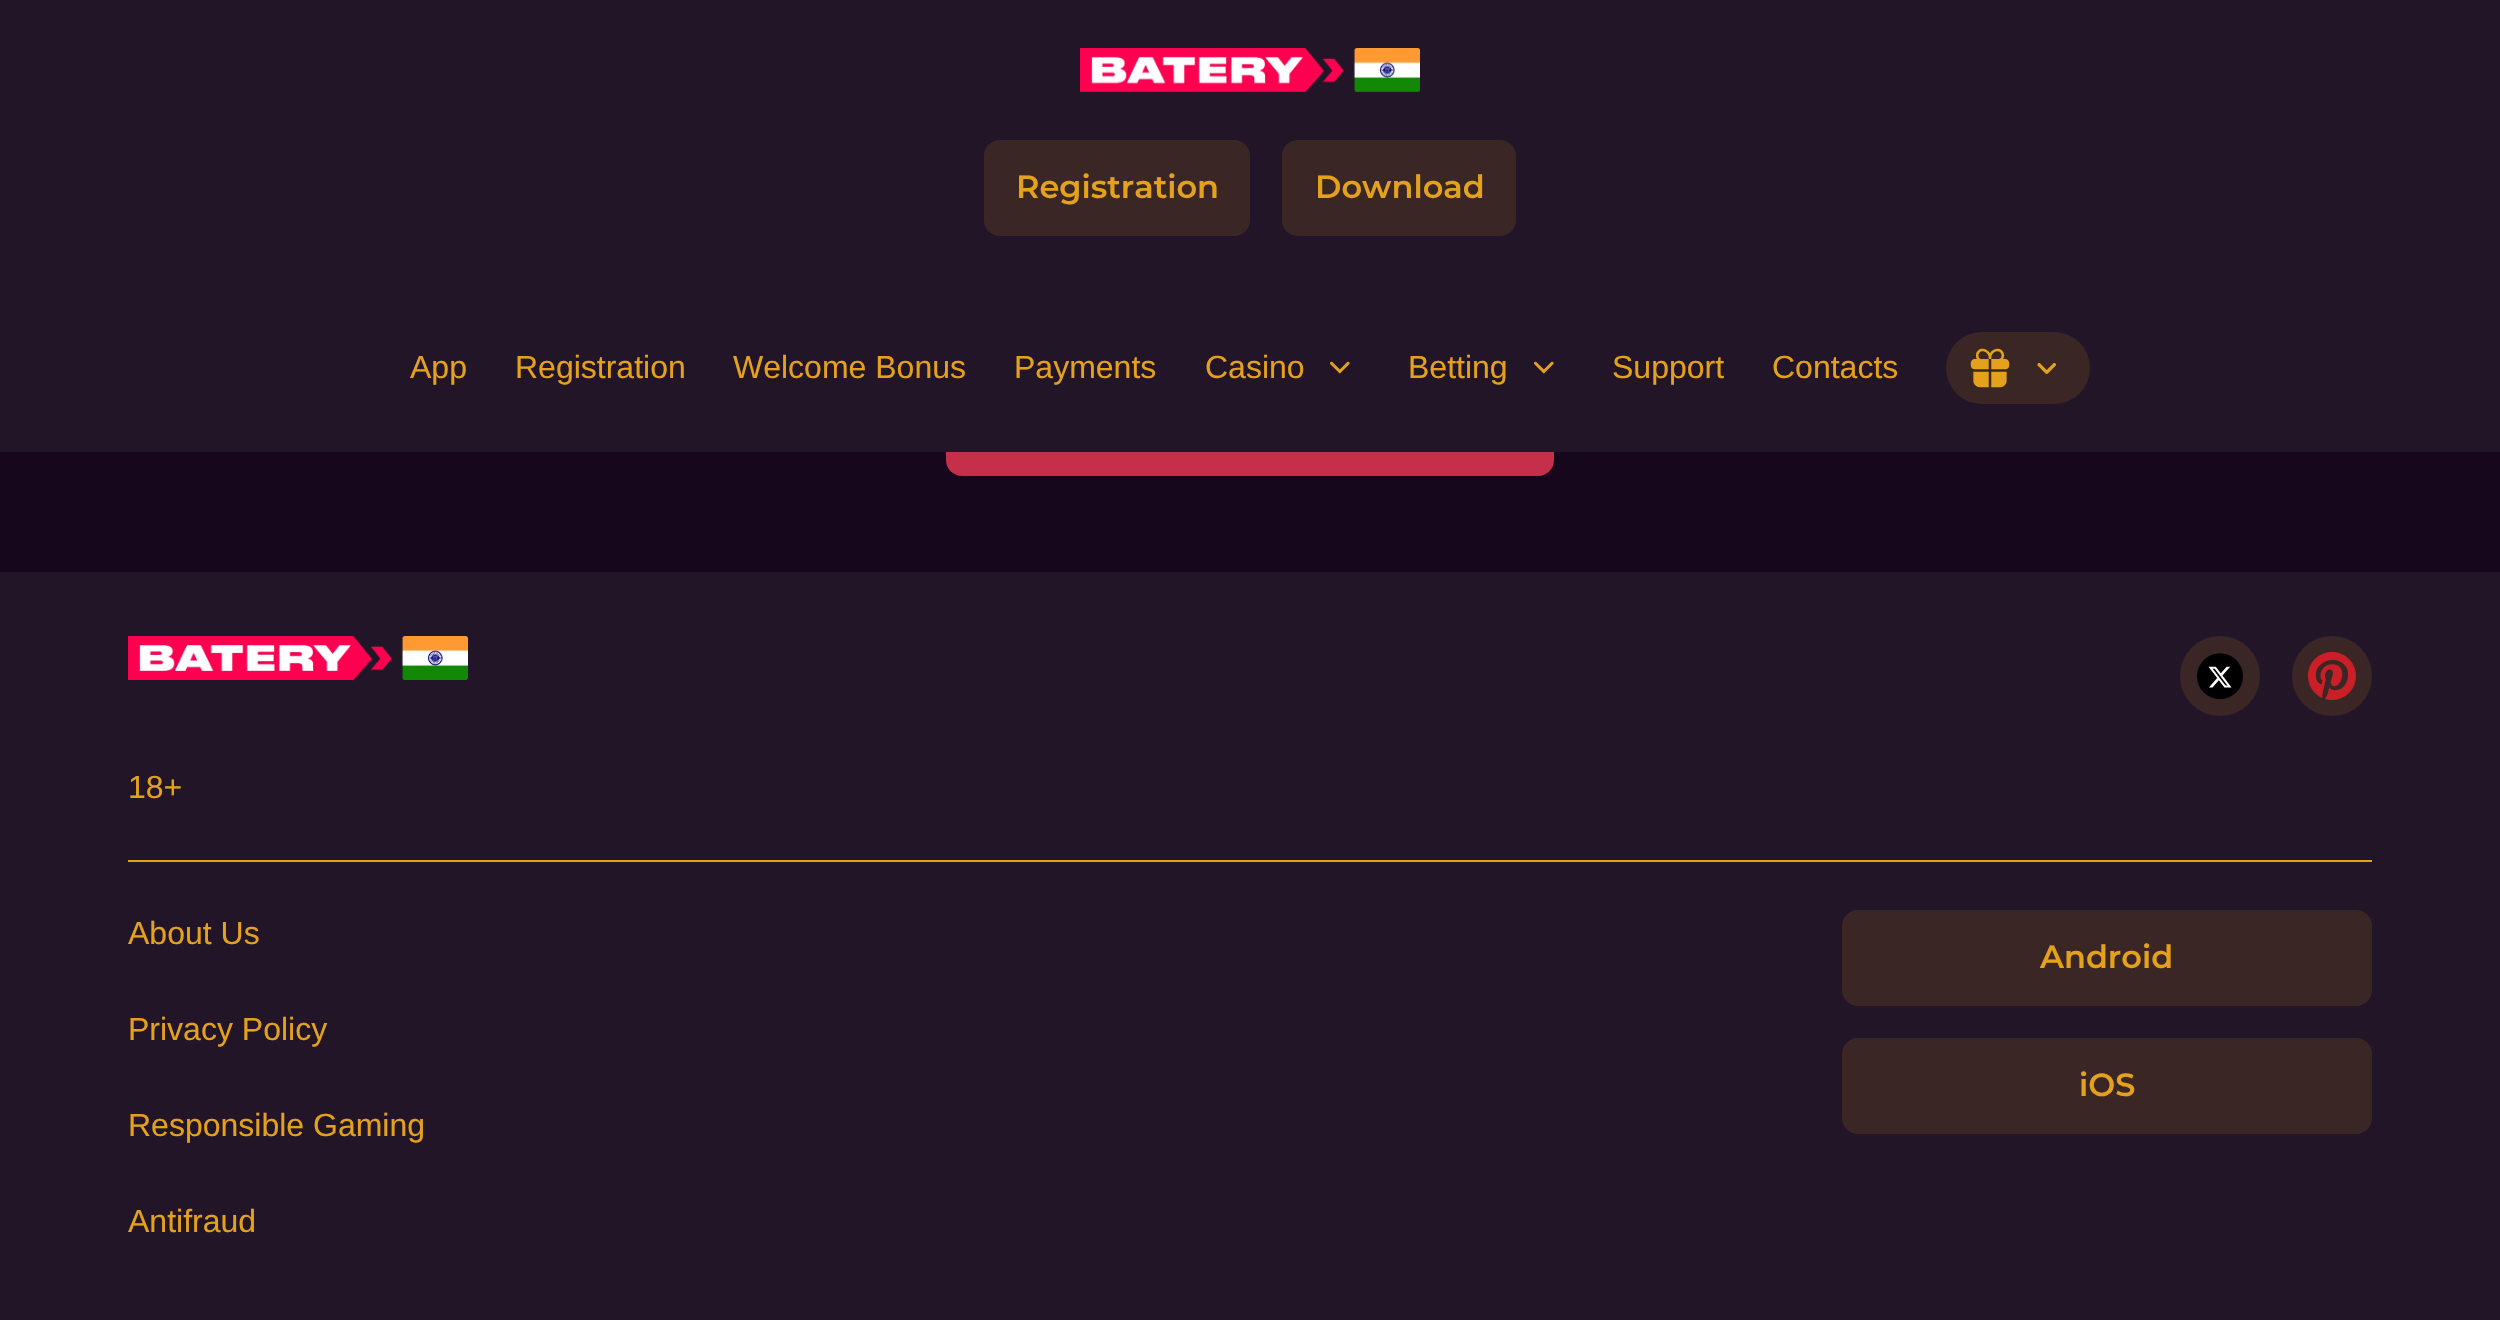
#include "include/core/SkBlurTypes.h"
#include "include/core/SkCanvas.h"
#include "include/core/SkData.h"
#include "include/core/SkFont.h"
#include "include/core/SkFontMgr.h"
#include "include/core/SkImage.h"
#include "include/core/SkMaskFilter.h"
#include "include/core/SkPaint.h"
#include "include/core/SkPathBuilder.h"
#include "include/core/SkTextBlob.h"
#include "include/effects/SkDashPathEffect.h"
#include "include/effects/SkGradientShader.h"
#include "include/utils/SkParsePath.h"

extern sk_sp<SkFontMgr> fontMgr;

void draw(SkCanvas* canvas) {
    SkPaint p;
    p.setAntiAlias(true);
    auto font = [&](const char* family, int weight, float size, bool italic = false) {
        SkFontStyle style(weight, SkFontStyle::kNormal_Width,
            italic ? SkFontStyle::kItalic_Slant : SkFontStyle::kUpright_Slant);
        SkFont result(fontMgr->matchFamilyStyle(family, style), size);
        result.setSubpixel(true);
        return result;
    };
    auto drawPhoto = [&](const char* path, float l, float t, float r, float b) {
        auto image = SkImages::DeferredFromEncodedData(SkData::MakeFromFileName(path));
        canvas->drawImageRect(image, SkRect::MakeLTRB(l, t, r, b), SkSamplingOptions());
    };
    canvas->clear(0xFF17071D);
    p.setColor(0xFFC62F4A);
    canvas->drawRoundRect(SkRect::MakeLTRB(946, 380, 1554, 476), 16, 16, p);
    p.setColor(0xFF231528);
    canvas->drawRect(SkRect::MakeLTRB(0, 0, 2500, 452), p);
    drawPhoto("media/1.png", 1080, 48, 1420, 92);
    p.setColor(0xFF3B2626);
    canvas->drawRoundRect(SkRect::MakeLTRB(984, 140, 1250, 236), 16, 16, p);
    auto font1 = font("Montserrat", 100, 32);
    p.setColor(0xFFE3A11C);
    canvas->drawString("Registration", 1016, 198, font1, p);
    p.setColor(0xFF3B2626);
    canvas->drawRoundRect(SkRect::MakeLTRB(1282, 140, 1516, 236), 16, 16, p);
    p.setColor(0xFFE3A11C);
    canvas->drawString("Download", 1315, 198, font1, p);
    auto font2 = font("Liberation Sans", 400, 32);
    {
        const struct { const char* s; float x, y; } items[] = {
            {"App", 410, 378},
            {"Registration", 515, 378},
            {"Welcome Bonus", 733, 378},
            {"Payments", 1014, 378},
            {"Casino", 1205, 378},
        };
        for (auto [s, x, y] : items) {
            canvas->drawString(s, x, y, font2, p);
        }
    }
    drawPhoto("media/2.png", 1330, 361, 1350, 374);
    canvas->drawString("Betting", 1408, 378, font2, p);
    drawPhoto("media/2.png", 1534, 361, 1554, 374);
    canvas->drawString("Support", 1612, 378, font2, p);
    canvas->drawString("Contacts", 1772, 378, font2, p);
    p.setColor(0xFF3B2626);
    canvas->drawRoundRect(SkRect::MakeLTRB(1946, 332, 2090, 404), 36, 36, p);
    drawPhoto("media/3.png", 1970, 348, 2010, 388);
    drawPhoto("media/4.png", 2037, 363, 2056, 374);
    p.setColor(0xFF231528);
    canvas->drawRect(SkRect::MakeLTRB(0, 572, 2500, 1320), p);
    drawPhoto("media/5.png", 128, 636, 468, 680);
    p.setColor(0xFF3B2626);
    canvas->drawCircle(2220, 676, 40, p);
    drawPhoto("media/6.png", 2197, 653, 2243, 700);
    canvas->drawCircle(2332, 676, 40, p);
    drawPhoto("media/7.png", 2308, 652, 2356, 700);
    p.setColor(0xFFE3A11C);
    canvas->drawString("18+", 128, 798, font2, p);
    canvas->drawRect(SkRect::MakeLTRB(128, 860, 2372, 862), p);
    {
        const struct { const char* s; float x, y; } items[] = {
            {"About Us", 128, 944},
            {"Privacy Policy", 128, 1040},
            {"Responsible Gaming", 128, 1136},
            {"Antifraud", 128, 1232},
        };
        for (auto [s, x, y] : items) {
            canvas->drawString(s, x, y, font2, p);
        }
    }
    p.setColor(0xFF3B2626);
    canvas->drawRoundRect(SkRect::MakeLTRB(1842, 910, 2372, 1006), 16, 16, p);
    p.setColor(0xFFE3A11C);
    canvas->drawString("Android", 2040, 968, font1, p);
    p.setColor(0xFF3B2626);
    canvas->drawRoundRect(SkRect::MakeLTRB(1842, 1038, 2372, 1134), 16, 16, p);
    p.setColor(0xFFE3A11C);
    canvas->drawString("iOS", 2079, 1096, font1, p);
}
